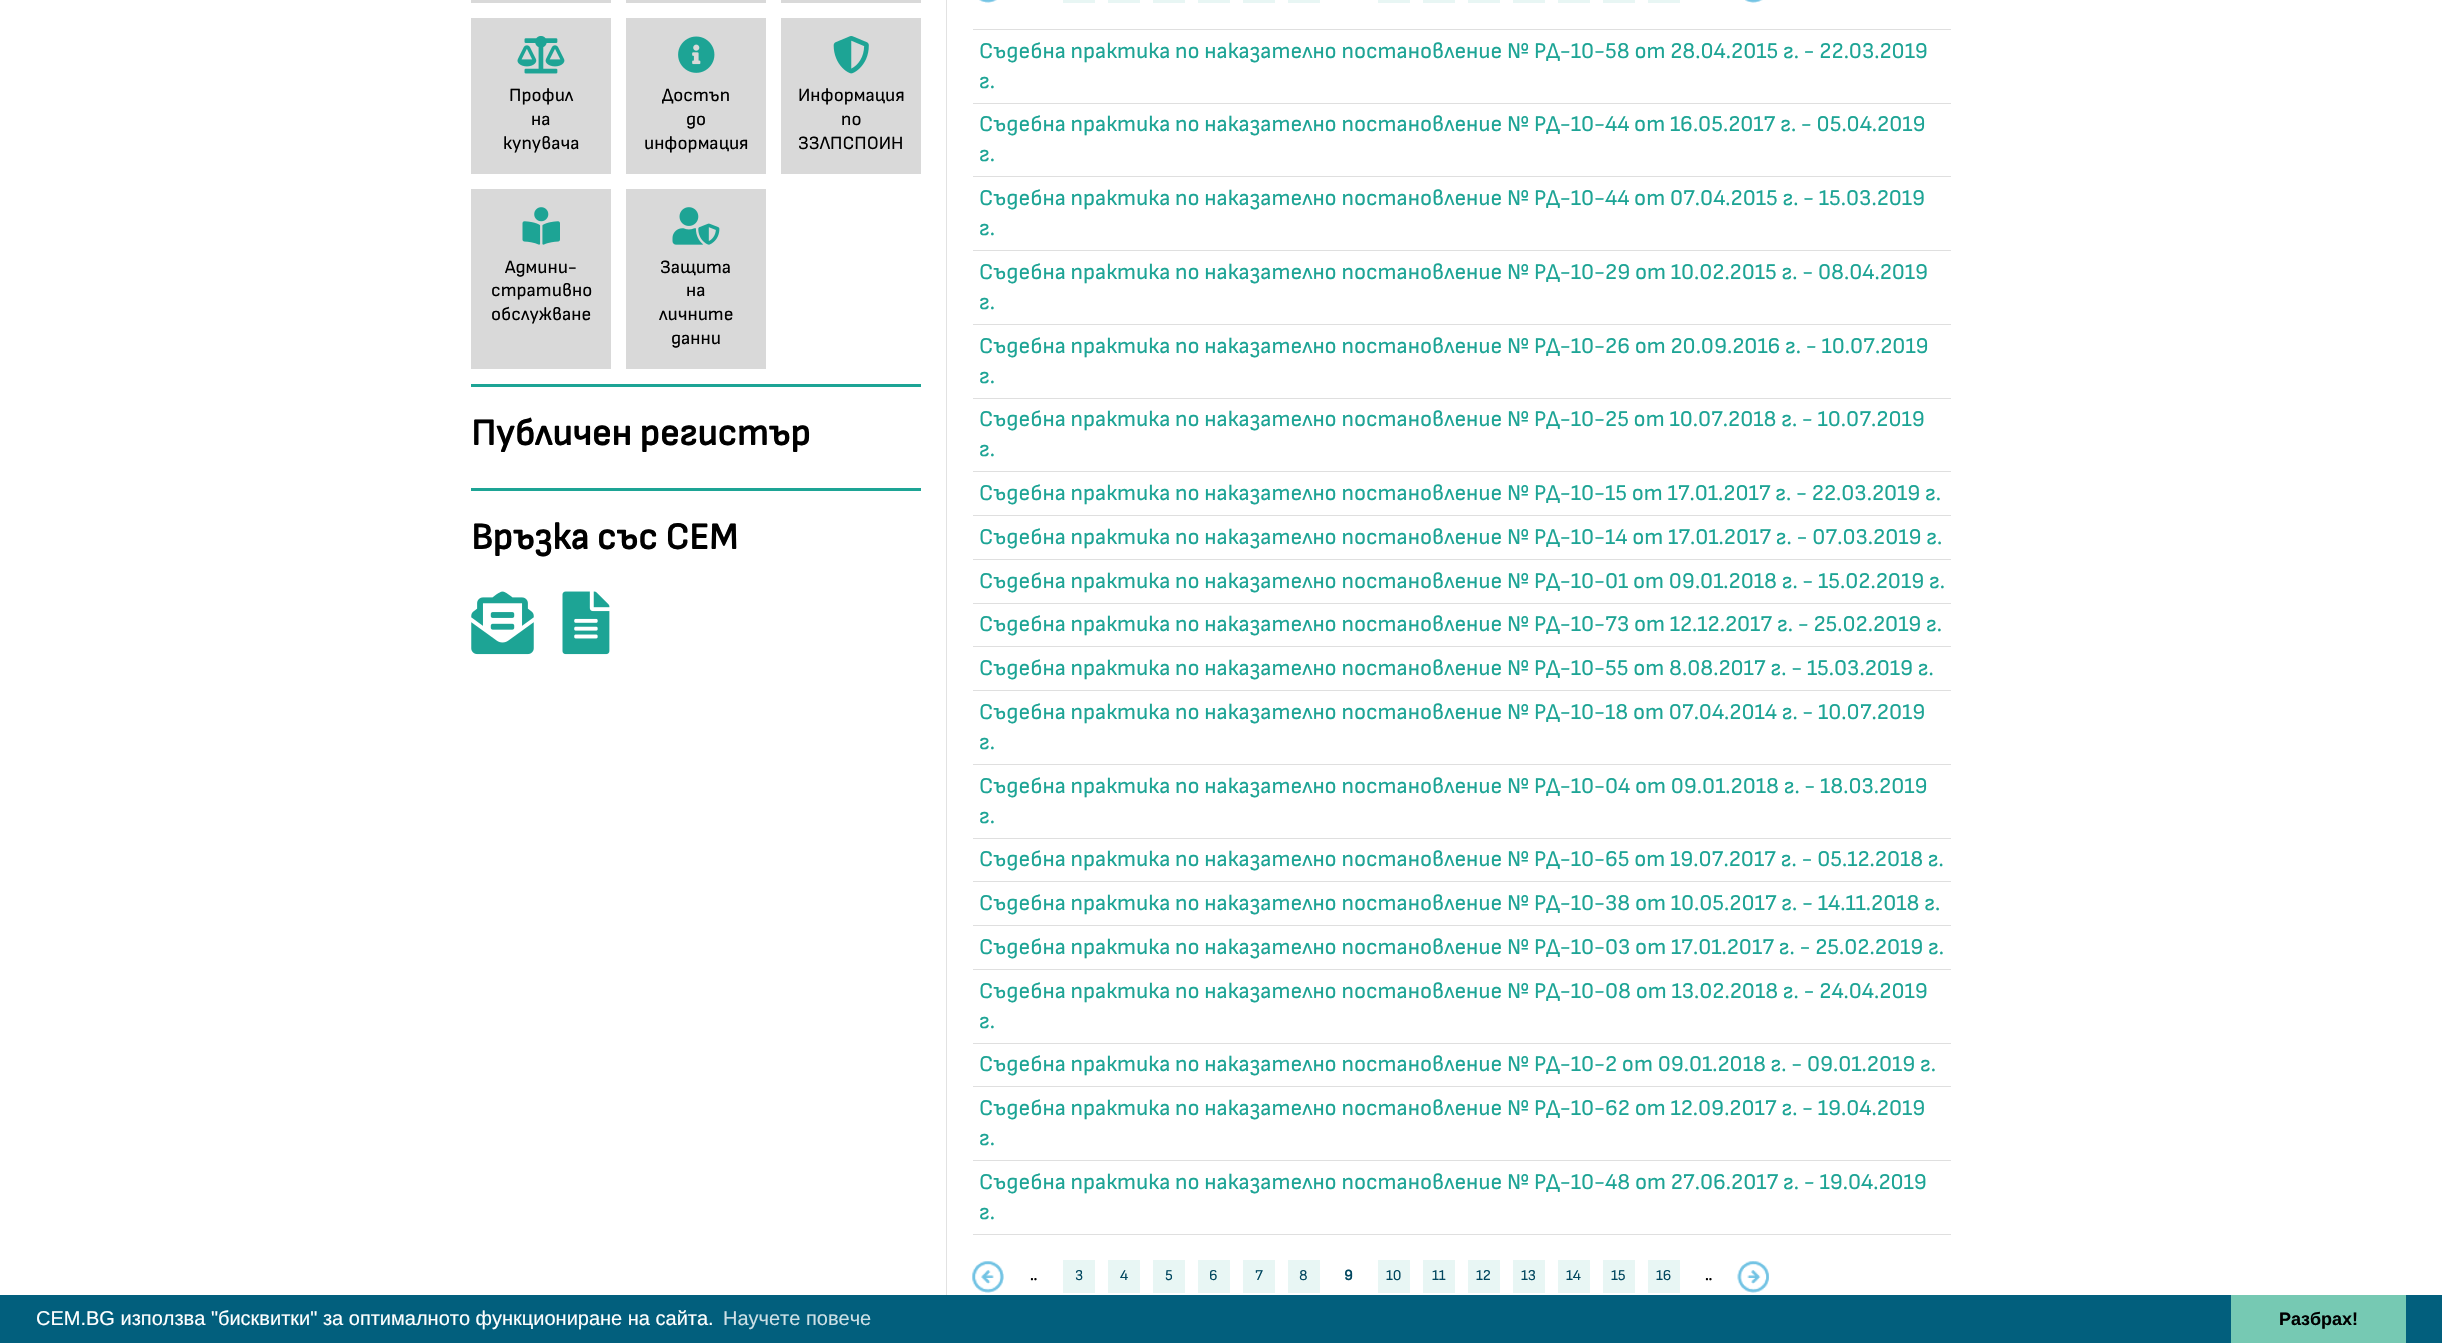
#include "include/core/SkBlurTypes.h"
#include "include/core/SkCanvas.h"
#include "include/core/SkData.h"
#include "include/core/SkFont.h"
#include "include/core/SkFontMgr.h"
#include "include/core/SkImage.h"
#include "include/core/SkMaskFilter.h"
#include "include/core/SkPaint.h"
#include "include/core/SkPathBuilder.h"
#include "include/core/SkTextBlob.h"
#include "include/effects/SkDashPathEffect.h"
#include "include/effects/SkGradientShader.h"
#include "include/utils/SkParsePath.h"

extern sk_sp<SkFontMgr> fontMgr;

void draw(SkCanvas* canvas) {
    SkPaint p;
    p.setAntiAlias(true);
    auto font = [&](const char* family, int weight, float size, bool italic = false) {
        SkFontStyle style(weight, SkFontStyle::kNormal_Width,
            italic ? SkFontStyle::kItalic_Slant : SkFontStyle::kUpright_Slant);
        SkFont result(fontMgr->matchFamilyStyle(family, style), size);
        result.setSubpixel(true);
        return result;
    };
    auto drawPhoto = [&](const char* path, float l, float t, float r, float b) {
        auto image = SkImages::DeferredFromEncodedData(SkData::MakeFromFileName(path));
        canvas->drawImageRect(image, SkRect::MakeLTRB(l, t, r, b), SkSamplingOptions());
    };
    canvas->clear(0xFFFFFFFF);
    {
        const struct { float l, t, r, b; SkColor color; } items[] = {
            {471, 0, 611, 3, 0xFFD9D9D9},
            {626, 0, 766, 3, 0xFFD9D9D9},
            {781, 0, 921, 3, 0xFFD9D9D9},
            {471, 18, 611, 174, 0xFFD9D9D9},
        };
        for (auto [l, t, r, b, color] : items) {
            p.setColor(color);
            canvas->drawRect(SkRect::MakeLTRB(l, t, r, b), p);
        }
    }
    drawPhoto("media/1.png", 517, 36, 565, 74);
    auto font1 = font("Sofia Sans", 400, 18.75f);
    p.setColor(0xFF000000);
    {
        const struct { const char* s; float x, y; } items[] = {
            {"Профил", 509, 101},
            {"на", 531, 125},
            {"купувача", 503, 149},
        };
        for (auto [s, x, y] : items) {
            canvas->drawString(s, x, y, font1, p);
        }
    }
    p.setColor(0xFFD9D9D9);
    canvas->drawRect(SkRect::MakeLTRB(626, 18, 766, 174), p);
    drawPhoto("media/2.png", 678, 36, 715, 73);
    p.setColor(0xFF000000);
    {
        const struct { const char* s; float x, y; } items[] = {
            {"Достъп", 662, 101},
            {"до", 686, 125},
            {"информация", 644, 149},
        };
        for (auto [s, x, y] : items) {
            canvas->drawString(s, x, y, font1, p);
        }
    }
    p.setColor(0xFFD9D9D9);
    canvas->drawRect(SkRect::MakeLTRB(781, 18, 921, 174), p);
    drawPhoto("media/3.png", 833, 36, 869, 74);
    p.setColor(0xFF000000);
    {
        const struct { const char* s; float x, y; } items[] = {
            {"Информация", 798, 101},
            {"по", 841, 125},
            {"ЗЗЛПСПОИН", 798, 149},
        };
        for (auto [s, x, y] : items) {
            canvas->drawString(s, x, y, font1, p);
        }
    }
    p.setColor(0xFFD9D9D9);
    canvas->drawRect(SkRect::MakeLTRB(471, 189, 611, 369), p);
    drawPhoto("media/4.png", 522, 207, 560, 245);
    p.setColor(0xFF000000);
    {
        const struct { const char* s; float x, y; } items[] = {
            {"Админи-", 505, 273},
            {"стративно", 491, 296},
            {"обслужване", 491, 320},
        };
        for (auto [s, x, y] : items) {
            canvas->drawString(s, x, y, font1, p);
        }
    }
    p.setColor(0xFFD9D9D9);
    canvas->drawRect(SkRect::MakeLTRB(626, 189, 766, 369), p);
    drawPhoto("media/5.png", 672, 207, 720, 245);
    p.setColor(0xFF000000);
    {
        const struct { const char* s; float x, y; } items[] = {
            {"Защита", 660, 273},
            {"на", 686, 296},
            {"личните", 659, 320},
            {"данни", 671, 344},
        };
        for (auto [s, x, y] : items) {
            canvas->drawString(s, x, y, font1, p);
        }
    }
    p.setColor(0xFF1DA495);
    canvas->drawRect(SkRect::MakeLTRB(471, 384, 921, 387), p);
    auto font2 = font("Sofia Sans", 700, 37.5f);
    p.setColor(0xFF000000);
    canvas->drawString("Публичен регистър", 471, 445, font2, p);
    p.setColor(0xFF1DA495);
    canvas->drawRect(SkRect::MakeLTRB(471, 488, 921, 491), p);
    p.setColor(0xFF000000);
    canvas->drawString("Връзка със СЕМ", 471, 549, font2, p);
    drawPhoto("media/6.png", 471, 591, 534, 655);
    drawPhoto("media/7.png", 562, 591, 610, 655);
    p.setColor(0xFFE2E2E2);
    canvas->drawRect(SkRect::MakeLTRB(946, 0, 947, 1295), p);
    drawPhoto("media/8.png", 979, 0, 997, 3);
    drawPhoto("media/9.png", 979, 0, 997, 3);
    {
        const struct { float l, t, r, b; SkColor color; } items[] = {
            {1063, 0, 1095, 3, 0xFFE8F6F4},
            {1108, 0, 1140, 3, 0xFFE8F6F4},
            {1153, 0, 1185, 3, 0xFFE8F6F4},
            {1198, 0, 1230, 3, 0xFFE8F6F4},
            {1243, 0, 1275, 3, 0xFFE8F6F4},
            {1288, 0, 1320, 3, 0xFFE8F6F4},
            {1378, 0, 1410, 3, 0xFFE8F6F4},
            {1423, 0, 1455, 3, 0xFFE8F6F4},
            {1468, 0, 1500, 3, 0xFFE8F6F4},
            {1513, 0, 1545, 3, 0xFFE8F6F4},
            {1558, 0, 1590, 3, 0xFFE8F6F4},
            {1603, 0, 1635, 3, 0xFFE8F6F4},
            {1648, 0, 1680, 3, 0xFFE8F6F4},
        };
        for (auto [l, t, r, b, color] : items) {
            p.setColor(color);
            canvas->drawRect(SkRect::MakeLTRB(l, t, r, b), p);
        }
    }
    drawPhoto("media/10.png", 1745, 0, 1763, 3);
    drawPhoto("media/11.png", 1745, 0, 1763, 3);
    p.setColor(0xFFDFDFDF);
    canvas->drawRect(SkRect::MakeLTRB(973, 29, 1951, 30), p);
    auto font3 = font("Sofia Sans", 400, 22.5f);
    p.setColor(0xFF1DA495);
    canvas->drawString("Съдебна практика по наказателно постановление № РД-10-58 от 28.04.2015 г. - 22.03.2019", 979, 58, font3, p);
    canvas->drawString("г.", 979, 88, font3, p);
    p.setColor(0xFFDFDFDF);
    canvas->drawRect(SkRect::MakeLTRB(973, 103, 1951, 104), p);
    p.setColor(0xFF1DA495);
    canvas->drawString("Съдебна практика по наказателно постановление № РД-10-44 от 16.05.2017 г. - 05.04.2019", 979, 131, font3, p);
    canvas->drawString("г.", 979, 161, font3, p);
    p.setColor(0xFFDFDFDF);
    canvas->drawRect(SkRect::MakeLTRB(973, 176, 1951, 177), p);
    p.setColor(0xFF1DA495);
    canvas->drawString("Съдебна практика по наказателно постановление № РД-10-44 от 07.04.2015 г. - 15.03.2019", 979, 205, font3, p);
    canvas->drawString("г.", 979, 235, font3, p);
    p.setColor(0xFFDFDFDF);
    canvas->drawRect(SkRect::MakeLTRB(973, 250, 1951, 251), p);
    p.setColor(0xFF1DA495);
    canvas->drawString("Съдебна практика по наказателно постановление № РД-10-29 от 10.02.2015 г. - 08.04.2019", 979, 279, font3, p);
    canvas->drawString("г.", 979, 309, font3, p);
    p.setColor(0xFFDFDFDF);
    canvas->drawRect(SkRect::MakeLTRB(973, 324, 1951, 325), p);
    p.setColor(0xFF1DA495);
    canvas->drawString("Съдебна практика по наказателно постановление № РД-10-26 от 20.09.2016 г. - 10.07.2019", 979, 353, font3, p);
    canvas->drawString("г.", 979, 383, font3, p);
    p.setColor(0xFFDFDFDF);
    canvas->drawRect(SkRect::MakeLTRB(973, 398, 1951, 399), p);
    p.setColor(0xFF1DA495);
    canvas->drawString("Съдебна практика по наказателно постановление № РД-10-25 от 10.07.2018 г. - 10.07.2019", 979, 426, font3, p);
    canvas->drawString("г.", 979, 456, font3, p);
    p.setColor(0xFFDFDFDF);
    canvas->drawRect(SkRect::MakeLTRB(973, 471, 1951, 472), p);
    p.setColor(0xFF1DA495);
    canvas->drawString("Съдебна практика по наказателно постановление № РД-10-15 от 17.01.2017 г. - 22.03.2019 г.", 979, 500, font3, p);
    p.setColor(0xFFDFDFDF);
    canvas->drawRect(SkRect::MakeLTRB(973, 515, 1951, 516), p);
    p.setColor(0xFF1DA495);
    canvas->drawString("Съдебна практика по наказателно постановление № РД-10-14 от 17.01.2017 г. - 07.03.2019 г.", 979, 544, font3, p);
    p.setColor(0xFFDFDFDF);
    canvas->drawRect(SkRect::MakeLTRB(973, 559, 1951, 560), p);
    p.setColor(0xFF1DA495);
    canvas->drawString("Съдебна практика по наказателно постановление № РД-10-01 от 09.01.2018 г. - 15.02.2019 г.", 979, 588, font3, p);
    p.setColor(0xFFDFDFDF);
    canvas->drawRect(SkRect::MakeLTRB(973, 603, 1951, 604), p);
    p.setColor(0xFF1DA495);
    canvas->drawString("Съдебна практика по наказателно постановление № РД-10-73 от 12.12.2017 г. - 25.02.2019 г.", 979, 631, font3, p);
    p.setColor(0xFFDFDFDF);
    canvas->drawRect(SkRect::MakeLTRB(973, 646, 1951, 647), p);
    p.setColor(0xFF1DA495);
    canvas->drawString("Съдебна практика по наказателно постановление № РД-10-55 от 8.08.2017 г. - 15.03.2019 г.", 979, 675, font3, p);
    p.setColor(0xFFDFDFDF);
    canvas->drawRect(SkRect::MakeLTRB(973, 690, 1951, 691), p);
    p.setColor(0xFF1DA495);
    canvas->drawString("Съдебна практика по наказателно постановление № РД-10-18 от 07.04.2014 г. - 10.07.2019", 979, 719, font3, p);
    canvas->drawString("г.", 979, 749, font3, p);
    p.setColor(0xFFDFDFDF);
    canvas->drawRect(SkRect::MakeLTRB(973, 764, 1951, 765), p);
    p.setColor(0xFF1DA495);
    canvas->drawString("Съдебна практика по наказателно постановление № РД-10-04 от 09.01.2018 г. - 18.03.2019", 979, 793, font3, p);
    canvas->drawString("г.", 979, 823, font3, p);
    p.setColor(0xFFDFDFDF);
    canvas->drawRect(SkRect::MakeLTRB(973, 838, 1951, 839), p);
    p.setColor(0xFF1DA495);
    canvas->drawString("Съдебна практика по наказателно постановление № РД-10-65 от 19.07.2017 г. - 05.12.2018 г.", 979, 866, font3, p);
    p.setColor(0xFFDFDFDF);
    canvas->drawRect(SkRect::MakeLTRB(973, 881, 1951, 882), p);
    p.setColor(0xFF1DA495);
    canvas->drawString("Съдебна практика по наказателно постановление № РД-10-38 от 10.05.2017 г. - 14.11.2018 г.", 979, 910, font3, p);
    p.setColor(0xFFDFDFDF);
    canvas->drawRect(SkRect::MakeLTRB(973, 925, 1951, 926), p);
    p.setColor(0xFF1DA495);
    canvas->drawString("Съдебна практика по наказателно постановление № РД-10-03 от 17.01.2017 г. - 25.02.2019 г.", 979, 954, font3, p);
    p.setColor(0xFFDFDFDF);
    canvas->drawRect(SkRect::MakeLTRB(973, 969, 1951, 970), p);
    p.setColor(0xFF1DA495);
    canvas->drawString("Съдебна практика по наказателно постановление № РД-10-08 от 13.02.2018 г. - 24.04.2019", 979, 998, font3, p);
    canvas->drawString("г.", 979, 1028, font3, p);
    p.setColor(0xFFDFDFDF);
    canvas->drawRect(SkRect::MakeLTRB(973, 1043, 1951, 1044), p);
    p.setColor(0xFF1DA495);
    canvas->drawString("Съдебна практика по наказателно постановление № РД-10-2 от 09.01.2018 г. - 09.01.2019 г.", 979, 1071, font3, p);
    p.setColor(0xFFDFDFDF);
    canvas->drawRect(SkRect::MakeLTRB(973, 1086, 1951, 1087), p);
    p.setColor(0xFF1DA495);
    canvas->drawString("Съдебна практика по наказателно постановление № РД-10-62 от 12.09.2017 г. - 19.04.2019", 979, 1115, font3, p);
    canvas->drawString("г.", 979, 1145, font3, p);
    p.setColor(0xFFDFDFDF);
    canvas->drawRect(SkRect::MakeLTRB(973, 1160, 1951, 1161), p);
    p.setColor(0xFF1DA495);
    canvas->drawString("Съдебна практика по наказателно постановление № РД-10-48 от 27.06.2017 г. - 19.04.2019", 979, 1189, font3, p);
    canvas->drawString("г.", 979, 1219, font3, p);
    p.setColor(0xFFDFDFDF);
    canvas->drawRect(SkRect::MakeLTRB(973, 1234, 1951, 1235), p);
    drawPhoto("media/12.png", 972, 1261, 1004, 1293);
    drawPhoto("media/13.png", 972, 1261, 1004, 1293);
    auto font4 = font("Sofia Sans", 700, 15);
    p.setColor(0xFF000000);
    canvas->drawString("..", 1030, 1280, font4, p);
    p.setColor(0xFFE8F6F4);
    canvas->drawRect(SkRect::MakeLTRB(1063, 1260, 1095, 1293), p);
    auto font5 = font("Sofia Sans", 400, 15);
    p.setColor(0xFF01475F);
    canvas->drawString("3", 1075, 1280, font5, p);
    p.setColor(0xFFE8F6F4);
    canvas->drawRect(SkRect::MakeLTRB(1108, 1260, 1140, 1293), p);
    p.setColor(0xFF01475F);
    canvas->drawString("4", 1120, 1280, font5, p);
    p.setColor(0xFFE8F6F4);
    canvas->drawRect(SkRect::MakeLTRB(1153, 1260, 1185, 1293), p);
    p.setColor(0xFF01475F);
    canvas->drawString("5", 1165, 1280, font5, p);
    p.setColor(0xFFE8F6F4);
    canvas->drawRect(SkRect::MakeLTRB(1198, 1260, 1230, 1293), p);
    p.setColor(0xFF01475F);
    canvas->drawString("6", 1209, 1280, font5, p);
    p.setColor(0xFFE8F6F4);
    canvas->drawRect(SkRect::MakeLTRB(1243, 1260, 1275, 1293), p);
    p.setColor(0xFF01475F);
    canvas->drawString("7", 1255, 1280, font5, p);
    p.setColor(0xFFE8F6F4);
    canvas->drawRect(SkRect::MakeLTRB(1288, 1260, 1320, 1293), p);
    p.setColor(0xFF01475F);
    canvas->drawString("8", 1299, 1280, font5, p);
    canvas->drawString("9", 1344, 1280, font4, p);
    p.setColor(0xFFE8F6F4);
    canvas->drawRect(SkRect::MakeLTRB(1378, 1260, 1410, 1293), p);
    p.setColor(0xFF01475F);
    canvas->drawString("10", 1386, 1280, font5, p);
    p.setColor(0xFFE8F6F4);
    canvas->drawRect(SkRect::MakeLTRB(1423, 1260, 1455, 1293), p);
    p.setColor(0xFF01475F);
    canvas->drawString("11", 1432, 1280, font5, p);
    p.setColor(0xFFE8F6F4);
    canvas->drawRect(SkRect::MakeLTRB(1468, 1260, 1500, 1293), p);
    p.setColor(0xFF01475F);
    canvas->drawString("12", 1476, 1280, font5, p);
    p.setColor(0xFFE8F6F4);
    canvas->drawRect(SkRect::MakeLTRB(1513, 1260, 1545, 1293), p);
    p.setColor(0xFF01475F);
    canvas->drawString("13", 1521, 1280, font5, p);
    p.setColor(0xFFE8F6F4);
    canvas->drawRect(SkRect::MakeLTRB(1558, 1260, 1590, 1293), p);
    p.setColor(0xFF01475F);
    canvas->drawString("14", 1566, 1280, font5, p);
    p.setColor(0xFFE8F6F4);
    canvas->drawRect(SkRect::MakeLTRB(1603, 1260, 1635, 1293), p);
    p.setColor(0xFF01475F);
    canvas->drawString("15", 1611, 1280, font5, p);
    p.setColor(0xFFE8F6F4);
    canvas->drawRect(SkRect::MakeLTRB(1648, 1260, 1680, 1293), p);
    p.setColor(0xFF01475F);
    canvas->drawString("16", 1656, 1280, font5, p);
    p.setColor(0xFF000000);
    canvas->drawString("..", 1705, 1280, font4, p);
    drawPhoto("media/14.png", 1737, 1261, 1769, 1293);
    drawPhoto("media/15.png", 1737, 1261, 1769, 1293);
    p.setColor(0xFF025F7D);
    canvas->drawRect(SkRect::MakeLTRB(0, 1295, 2442, 1343), p);
    auto font6 = font("Liberation Sans", 400, 20);
    p.setColor(0xFFFFFFFF);
    canvas->drawString("CEM.BG използва \"бисквитки\" за оптималното функциониране на сайта.", 36, 1325, font6, p);
    p.setColor(0xFFCCDFE5);
    canvas->drawString("Научете повече", 723, 1325, font6, p);
    p.setColor(0xFF76C9B3);
    canvas->drawRect(SkRect::MakeLTRB(2231, 1295, 2406, 1343), p);
    auto font7 = font("Liberation Sans", 700, 18);
    p.setColor(0xFF000000);
    canvas->drawString("Разбрах!", 2279, 1325, font7, p);
}
